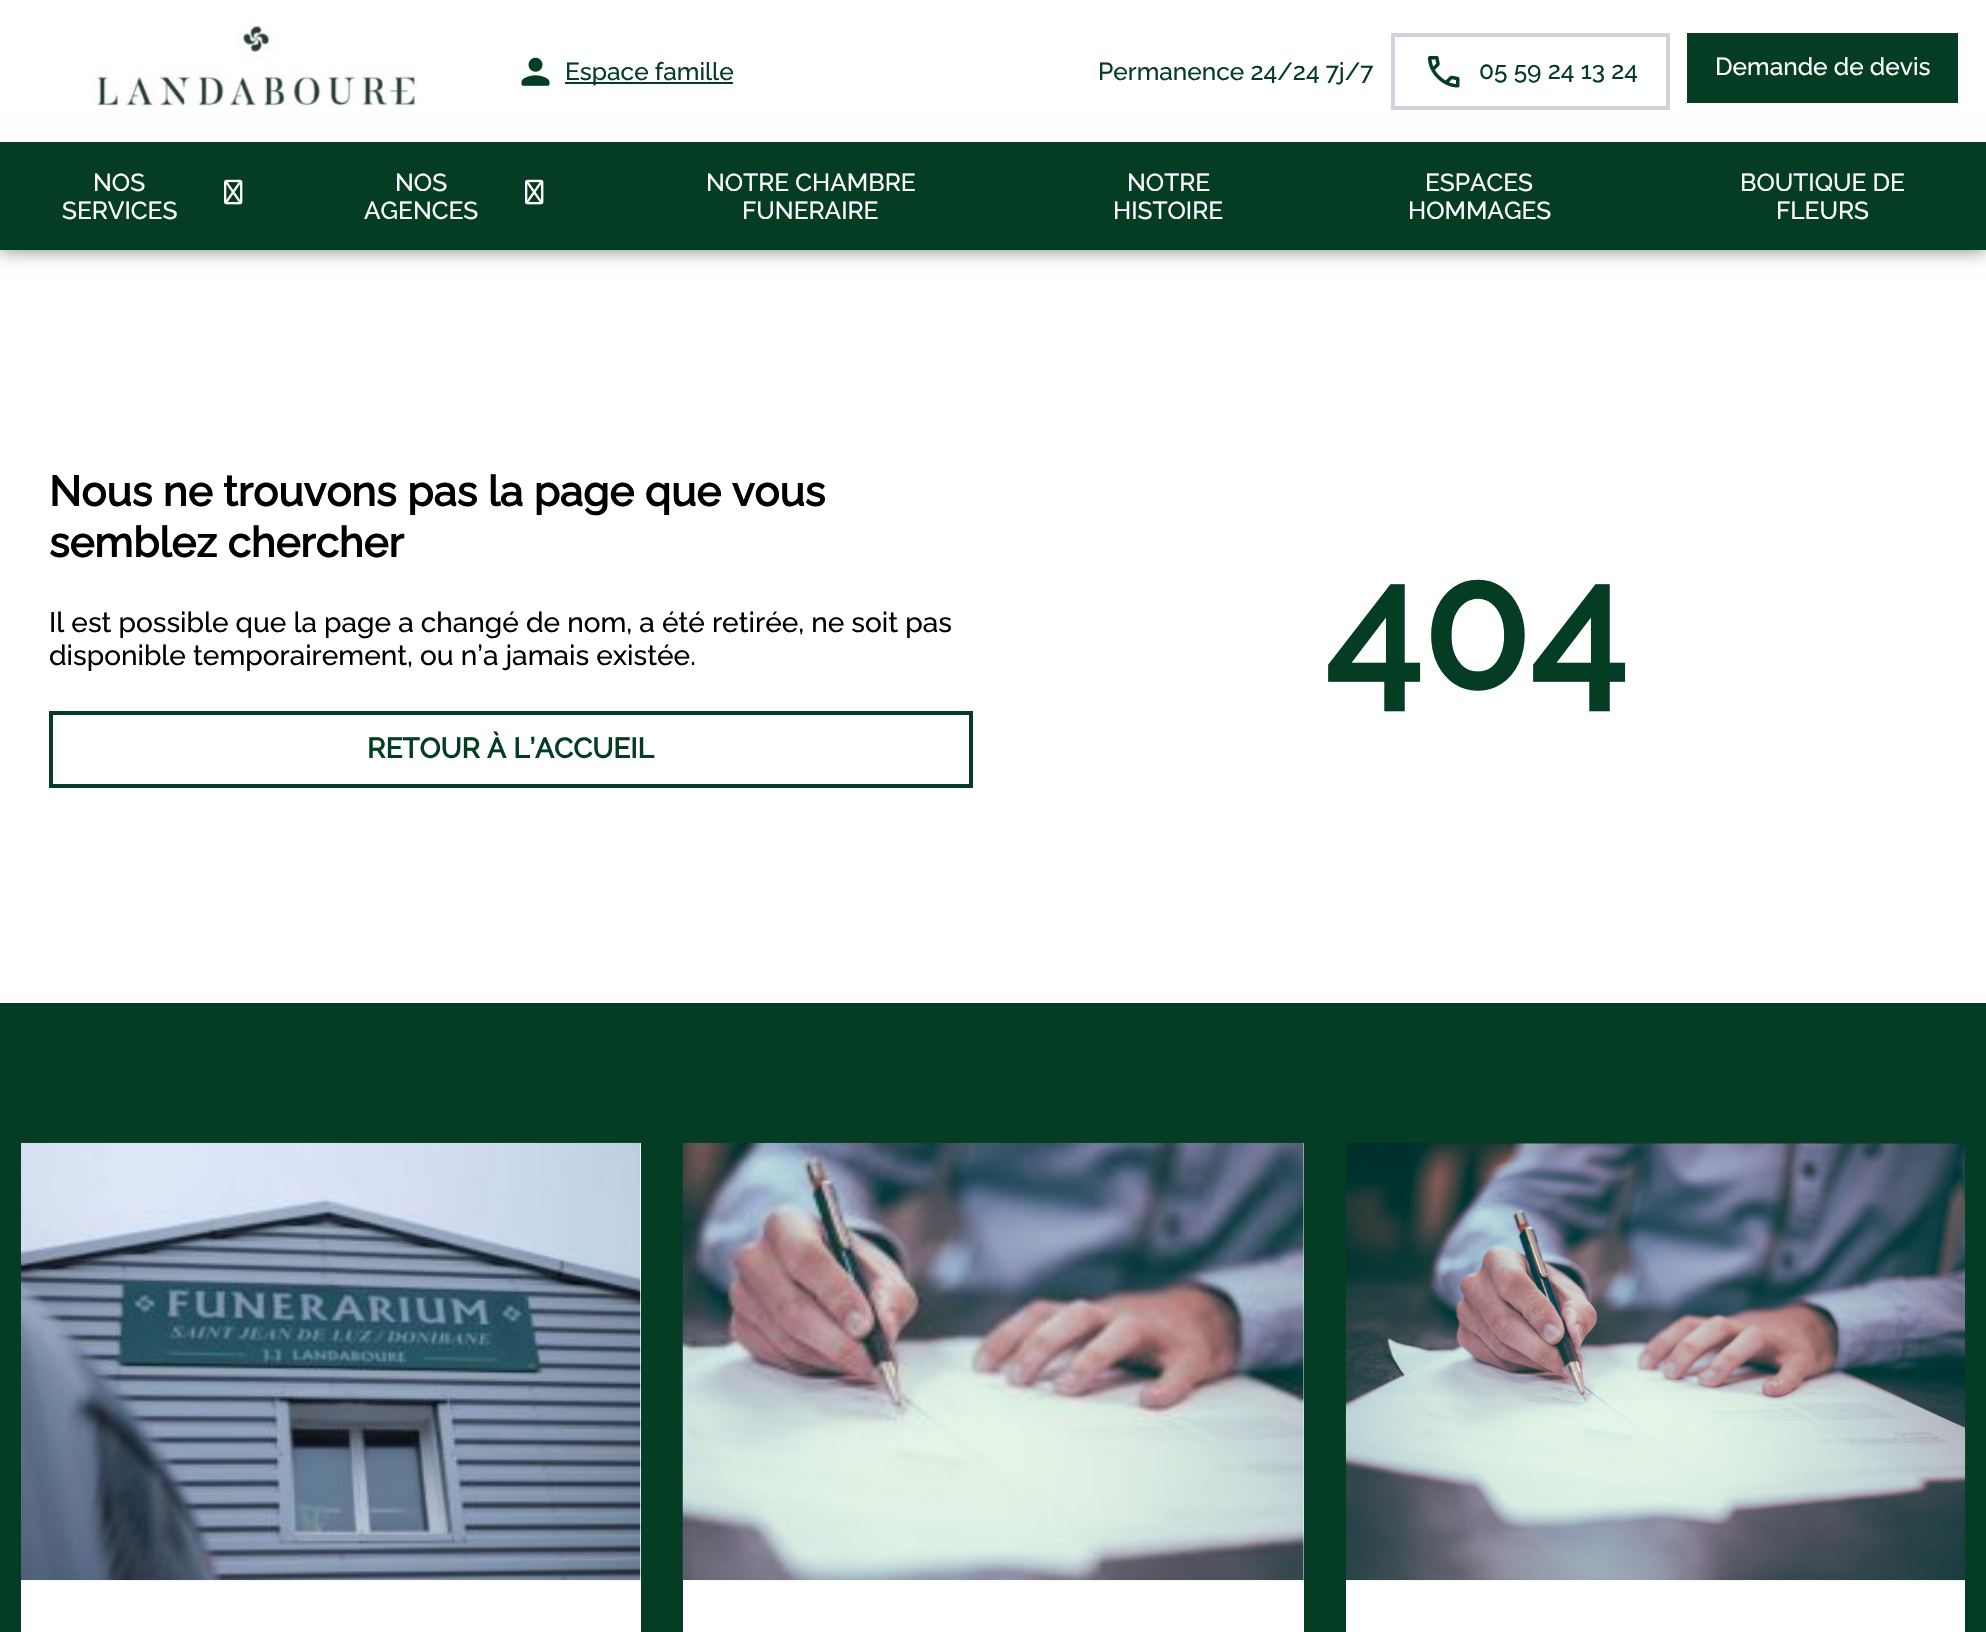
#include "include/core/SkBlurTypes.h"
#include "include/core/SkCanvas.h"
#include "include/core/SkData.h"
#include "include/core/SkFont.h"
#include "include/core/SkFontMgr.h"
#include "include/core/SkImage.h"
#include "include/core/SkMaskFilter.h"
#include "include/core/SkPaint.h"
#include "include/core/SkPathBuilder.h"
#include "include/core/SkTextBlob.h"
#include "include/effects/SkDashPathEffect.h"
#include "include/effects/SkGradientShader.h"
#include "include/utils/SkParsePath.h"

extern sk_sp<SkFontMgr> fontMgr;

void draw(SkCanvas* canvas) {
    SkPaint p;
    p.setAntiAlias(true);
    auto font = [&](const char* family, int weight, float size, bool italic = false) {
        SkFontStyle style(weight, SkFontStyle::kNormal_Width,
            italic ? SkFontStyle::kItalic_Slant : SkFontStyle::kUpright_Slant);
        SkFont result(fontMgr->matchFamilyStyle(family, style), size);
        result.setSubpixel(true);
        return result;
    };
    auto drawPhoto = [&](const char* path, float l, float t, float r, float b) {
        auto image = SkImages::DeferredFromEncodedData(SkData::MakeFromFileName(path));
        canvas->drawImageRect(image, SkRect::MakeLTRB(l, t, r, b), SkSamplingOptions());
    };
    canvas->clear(0xFFFFFFFF);
    p.setColor(0x80000000);
    p.setMaskFilter(SkMaskFilter::MakeBlur(kNormal_SkBlurStyle, 9));
    canvas->drawRect(SkRect::MakeLTRB(0, 142, 1986, 250), p);
    p.setMaskFilter(nullptr);
    p.setColor(0xFFFFFFFF);
    canvas->drawRect(SkRect::MakeLTRB(0, 124, 1986, 142), p);
    drawPhoto("media/1.png", 92, 23, 419, 107);
    drawPhoto("media/2.png", 521, 57, 550, 86);
    p.setColor(0xFF043C24);
    canvas->drawRect(SkRect::MakeLTRB(565, 82, 733, 84), p);
    auto font1 = font("Raleway", 100, 24.5f);
    canvas->drawString("Espace famille", 565, 80, font1, p);
    canvas->drawString("Permanence 24/24 7j/7", 1098, 80, font1, p);
    p.setStyle(SkPaint::kStroke_Style);
    p.setStrokeWidth(4);
    p.setColor(0xFFD0D3DC);
    canvas->drawRect(SkRect::MakeLTRB(1393, 35, 1668, 108), p);
    drawPhoto("media/3.png", 1428, 56, 1460, 88);
    p.setStyle(SkPaint::kFill_Style);
    p.setColor(0xFF043C24);
    canvas->drawString("05 59 24 13 24", 1479, 79, font1, p);
    canvas->drawRect(SkRect::MakeLTRB(1687, 33, 1958, 103), p);
    p.setColor(0xFFFFFFFF);
    canvas->drawString("Demande de devis", 1715, 75, font1, p);
    p.setColor(0xFF043C24);
    canvas->drawRect(SkRect::MakeLTRB(0, 142, 1986, 250), p);
    p.setColor(0xFFFFFFFF);
    canvas->drawString("NOS", 93, 191, font1, p);
    drawPhoto("media/4.png", 224, 179, 243, 205);
    canvas->drawString("SERVICES", 62, 219, font1, p);
    canvas->drawString("NOS", 395, 191, font1, p);
    drawPhoto("media/4.png", 525, 179, 544, 205);
    {
        const struct { const char* s; float x, y; } items[] = {
            {"AGENCES", 364, 219},
            {"NOTRE CHAMBRE", 706, 191},
            {"FUNERAIRE", 742, 219},
            {"NOTRE", 1127, 191},
            {"HISTOIRE", 1113, 219},
            {"ESPACES", 1425, 191},
            {"HOMMAGES", 1408, 219},
            {"BOUTIQUE DE", 1740, 191},
            {"FLEURS", 1776, 219},
        };
        for (auto [s, x, y] : items) {
            canvas->drawString(s, x, y, font1, p);
        }
    }
    auto font2 = font("Raleway", 700, 42);
    p.setColor(0xFF000000);
    canvas->drawString("Nous ne trouvons pas la page que vous", 49, 506, font2, p);
    canvas->drawString("semblez chercher", 49, 557, font2, p);
    auto font3 = font("Raleway", 100, 28);
    canvas->drawString("Il est possible que la page a changé de nom, a été retirée, ne soit pas", 49, 632, font3, p);
    canvas->drawString("disponible temporairement, ou n’a jamais existée.", 49, 665, font3, p);
    p.setStyle(SkPaint::kStroke_Style);
    p.setColor(0xFF043C24);
    canvas->drawRect(SkRect::MakeLTRB(51, 713, 971, 786), p);
    auto font4 = font("Raleway", 700, 28);
    p.setStyle(SkPaint::kFill_Style);
    canvas->drawString("RETOUR À L’ACCUEIL", 367, 758, font4, p);
    auto font5 = font("Raleway", 700, 175);
    canvas->drawString("404", 1324, 689, font5, p);
    canvas->drawRect(SkRect::MakeLTRB(0, 1003, 1986, 1632), p);
    p.setColor(0xFFFFFFFF);
    canvas->drawRect(SkRect::MakeLTRB(21, 1143, 641, 1632), p);
    drawPhoto("media/5.png", 21, 1142, 641, 1581);
    canvas->drawRect(SkRect::MakeLTRB(683, 1143, 1304, 1632), p);
    drawPhoto("media/6.png", 682, 1142, 1304, 1581);
    canvas->drawRect(SkRect::MakeLTRB(1346, 1580, 1965, 1632), p);
    drawPhoto("media/7.png", 1345, 1143, 1966, 1581);
}
